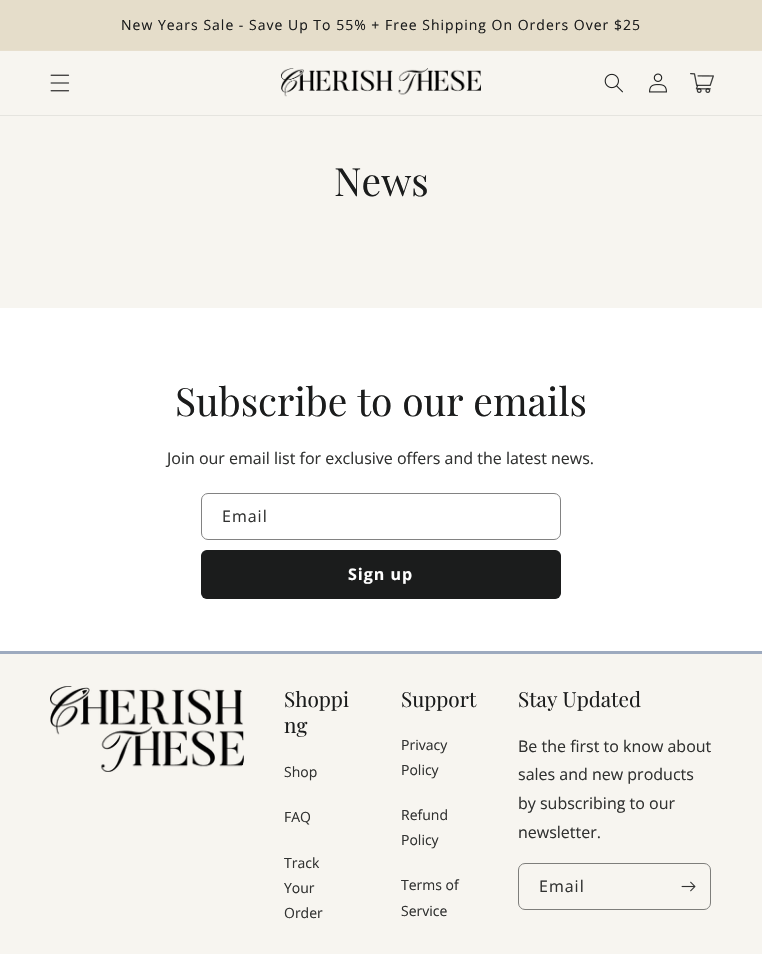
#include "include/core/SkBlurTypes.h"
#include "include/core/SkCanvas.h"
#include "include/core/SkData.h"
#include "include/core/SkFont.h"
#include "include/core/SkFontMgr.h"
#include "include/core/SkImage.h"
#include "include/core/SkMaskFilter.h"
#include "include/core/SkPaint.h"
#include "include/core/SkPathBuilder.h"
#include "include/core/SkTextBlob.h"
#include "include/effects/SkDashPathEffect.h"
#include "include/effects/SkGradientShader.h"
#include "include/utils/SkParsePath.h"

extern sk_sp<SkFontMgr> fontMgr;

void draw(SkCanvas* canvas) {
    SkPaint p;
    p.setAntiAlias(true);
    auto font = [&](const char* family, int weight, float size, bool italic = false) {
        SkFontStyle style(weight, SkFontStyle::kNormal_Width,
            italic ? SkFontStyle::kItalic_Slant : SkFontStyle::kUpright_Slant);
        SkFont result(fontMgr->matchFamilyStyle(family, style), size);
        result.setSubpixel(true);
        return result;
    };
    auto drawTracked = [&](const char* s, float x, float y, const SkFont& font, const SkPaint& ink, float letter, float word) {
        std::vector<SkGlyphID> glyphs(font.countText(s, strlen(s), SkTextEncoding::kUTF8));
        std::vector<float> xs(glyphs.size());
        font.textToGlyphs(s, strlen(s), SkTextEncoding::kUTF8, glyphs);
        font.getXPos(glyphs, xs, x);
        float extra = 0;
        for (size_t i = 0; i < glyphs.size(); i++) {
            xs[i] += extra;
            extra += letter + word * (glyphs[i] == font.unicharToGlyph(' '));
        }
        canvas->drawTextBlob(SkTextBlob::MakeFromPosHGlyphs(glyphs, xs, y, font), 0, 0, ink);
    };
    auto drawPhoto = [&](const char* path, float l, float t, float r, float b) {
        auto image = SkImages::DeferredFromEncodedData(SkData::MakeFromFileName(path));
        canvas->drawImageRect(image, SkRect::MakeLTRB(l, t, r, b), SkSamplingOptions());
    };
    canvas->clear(0xFFF7F5F0);
    p.setColor(0xFFE5DDCA);
    canvas->drawRect(SkRect::MakeLTRB(0, 0, 762, 50), p);
    p.setColor(0xFFE7DFCE);
    canvas->drawRect(SkRect::MakeLTRB(0, 50, 762, 51), p);
    auto font1 = font("Open Sans", 400, 14);
    p.setColor(0xFF1B1C1C);
    drawTracked("New Years Sale - Save Up To 55% + Free Shipping On Orders Over $25", 121, 30, font1, p, 1, 0);
    p.setColor(0xFFE5E4DF);
    canvas->drawRect(SkRect::MakeLTRB(0, 115, 762, 116), p);
    drawPhoto("media/1.png", 50, 74, 70, 92);
    drawPhoto("media/2.png", 281, 68, 481, 97);
    drawPhoto("media/3.png", 604, 73, 623, 93);
    drawPhoto("media/4.png", 649, 73, 667, 93);
    drawPhoto("media/5.png", 690, 73, 714, 93);
    auto font2 = font("Playfair Display", 400, 39);
    p.setColor(0xFF1B1C1C);
    canvas->drawString("News", 334, 196, font2, p);
    p.setColor(0xFFFFFFFF);
    canvas->drawRect(SkRect::MakeLTRB(0, 308, 762, 651), p);
    p.setColor(0xFF1B1C1C);
    canvas->drawString("Subscribe to our emails", 175, 416, font2, p);
    auto font3 = font("Open Sans", 400, 16);
    p.setColor(0xFF313231);
    canvas->drawString("Join our email list for exclusive offers and the latest news.", 167, 464, font3, p);
    p.setStyle(SkPaint::kStroke_Style);
    p.setStrokeWidth(1);
    p.setColor(0xFF828282);
    canvas->drawRoundRect(SkRect::MakeLTRB(201.5f, 493.5f, 560.5f, 539.5f), 6.5f, 6.5f, p);
    p.setStyle(SkPaint::kFill_Style);
    p.setColor(0xFF313231);
    drawTracked("Email", 222, 522, font3, p, 1, 0);
    p.setStyle(SkPaint::kStroke_Style);
    p.setStrokeWidth(2);
    p.setColor(0xFF1B1C1C);
    canvas->drawRoundRect(SkRect::MakeLTRB(202, 551, 560, 598), 7, 7, p);
    p.setStyle(SkPaint::kFill_Style);
    canvas->drawRoundRect(SkRect::MakeLTRB(201, 550, 561, 599), 6, 6, p);
    auto font4 = font("Open Sans", 700, 16);
    p.setColor(0xFFFFFFFF);
    drawTracked("Sign up", 348, 580, font4, p, 1, 0);
    p.setColor(0xFF9DAABF);
    canvas->drawRect(SkRect::MakeLTRB(0, 651, 762, 654), p);
    drawPhoto("media/6.png", 50, 686, 244, 772);
    auto font5 = font("Playfair Display", 400, 20.75f);
    p.setColor(0xFF1B1C1C);
    canvas->drawString("Shoppi", 284, 707, font5, p);
    canvas->drawString("ng", 284, 733, font5, p);
    p.setColor(0xFF313231);
    {
        const struct { const char* s; float x, y; } items[] = {
            {"Shop", 284, 777},
            {"FAQ", 284, 822},
            {"Track", 284, 868},
            {"Your", 284, 893},
            {"Order", 284, 918},
        };
        for (auto [s, x, y] : items) {
            canvas->drawString(s, x, y, font1, p);
        }
    }
    p.setColor(0xFF1B1C1C);
    canvas->drawString("Support", 401, 707, font5, p);
    p.setColor(0xFF313231);
    {
        const struct { const char* s; float x, y; } items[] = {
            {"Privacy", 401, 750},
            {"Policy", 401, 775},
            {"Refund", 401, 820},
            {"Policy", 401, 845},
            {"Terms of", 401, 890},
            {"Service", 401, 916},
        };
        for (auto [s, x, y] : items) {
            canvas->drawString(s, x, y, font1, p);
        }
    }
    p.setColor(0xFF1B1C1C);
    canvas->drawString("Stay Updated", 518, 707, font5, p);
    p.setColor(0xFF313231);
    {
        const struct { const char* s; float x, y; } items[] = {
            {"Be the first to know about", 518, 752},
            {"sales and new products", 518, 780},
            {"by subscribing to our", 518, 809},
            {"newsletter.", 518, 838},
        };
        for (auto [s, x, y] : items) {
            canvas->drawString(s, x, y, font3, p);
        }
    }
    p.setStyle(SkPaint::kStroke_Style);
    p.setStrokeWidth(1);
    p.setColor(0xFF7E7E7B);
    canvas->drawRoundRect(SkRect::MakeLTRB(518.5f, 863.5f, 710.5f, 909.5f), 6.5f, 6.5f, p);
    p.setStyle(SkPaint::kFill_Style);
    p.setColor(0xFF313231);
    drawTracked("Email", 539, 892, font3, p, 1, 0);
    drawPhoto("media/7.png", 681, 881, 696, 892);
}
